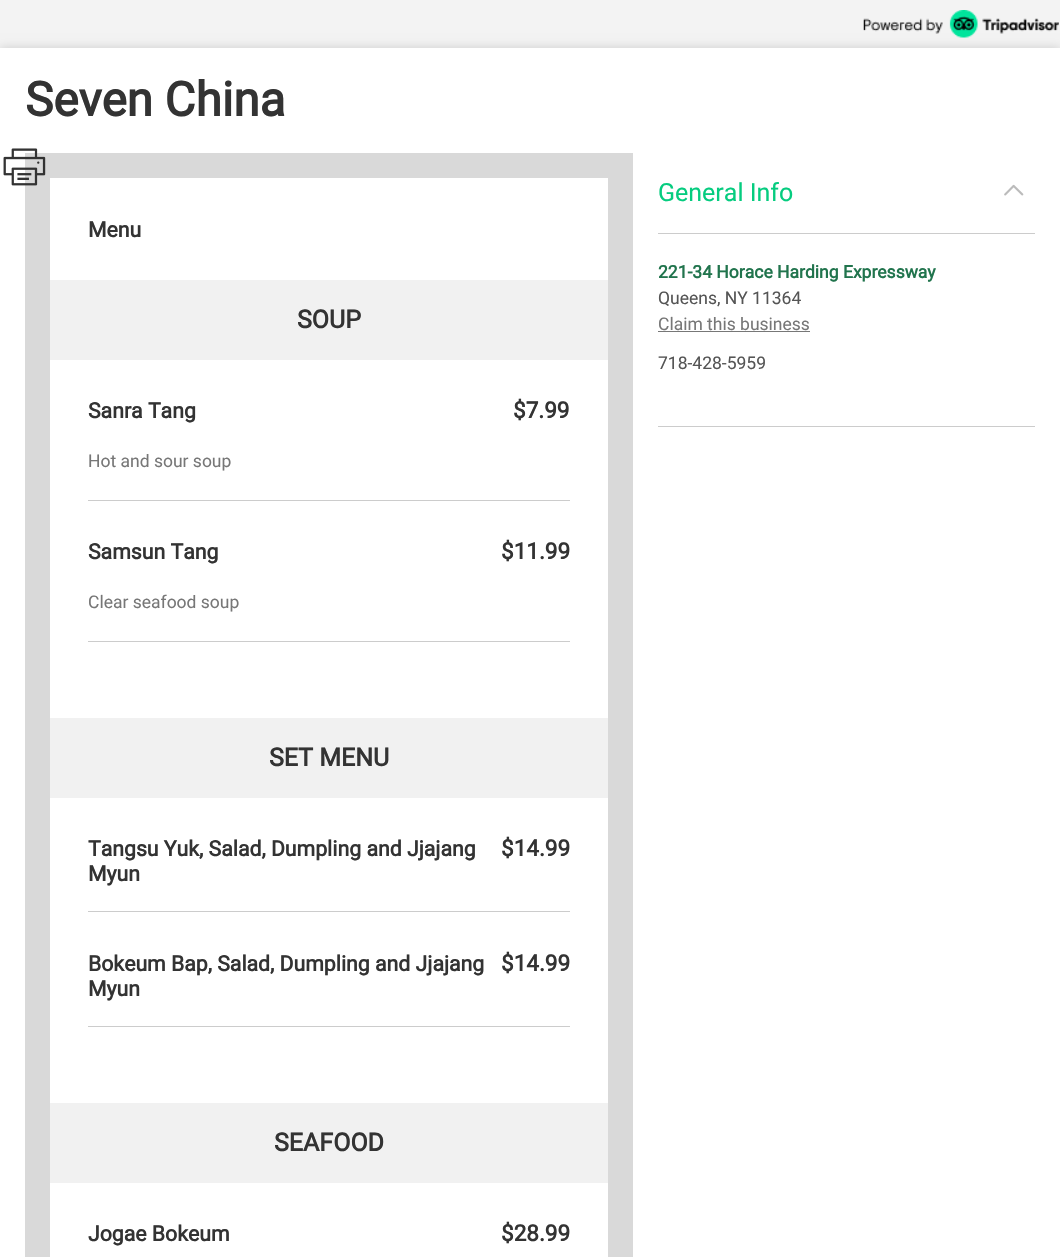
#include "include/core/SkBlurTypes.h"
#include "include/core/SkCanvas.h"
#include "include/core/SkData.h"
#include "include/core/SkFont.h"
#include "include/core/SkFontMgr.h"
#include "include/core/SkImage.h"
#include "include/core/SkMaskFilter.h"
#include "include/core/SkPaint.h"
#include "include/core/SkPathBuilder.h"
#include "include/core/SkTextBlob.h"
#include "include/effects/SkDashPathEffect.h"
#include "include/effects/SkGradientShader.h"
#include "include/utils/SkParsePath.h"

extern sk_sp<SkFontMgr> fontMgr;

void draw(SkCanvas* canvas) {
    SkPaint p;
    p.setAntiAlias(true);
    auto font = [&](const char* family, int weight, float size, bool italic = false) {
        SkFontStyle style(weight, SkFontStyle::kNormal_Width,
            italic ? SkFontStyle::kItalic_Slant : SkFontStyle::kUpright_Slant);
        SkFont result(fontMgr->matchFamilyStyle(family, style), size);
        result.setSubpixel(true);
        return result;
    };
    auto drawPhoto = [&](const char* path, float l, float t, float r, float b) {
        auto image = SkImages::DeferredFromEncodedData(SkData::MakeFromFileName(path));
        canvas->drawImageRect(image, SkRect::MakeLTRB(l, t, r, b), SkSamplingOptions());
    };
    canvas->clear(0xFFF3F3F3);
    p.setColor(0xFFCCCCCC);
    p.setMaskFilter(SkMaskFilter::MakeBlur(kNormal_SkBlurStyle, 5));
    canvas->drawRect(SkRect::MakeLTRB(0, 48, 1060, 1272), p);
    p.setMaskFilter(nullptr);
    drawPhoto("media/1.png", 863, 10, 1059, 38);
    p.setColor(0xFFFFFFFF);
    canvas->drawRect(SkRect::MakeLTRB(0, 48, 1060, 1257), p);
    auto font1 = font("Roboto", 700, 47.5f);
    p.setColor(0xFF333333);
    canvas->drawString("Seven China", 25, 116, font1, p);
    p.setStyle(SkPaint::kStroke_Style);
    p.setStrokeWidth(25);
    p.setColor(0xFFD9D9D9);
    canvas->drawRect(SkRect::MakeLTRB(37.5f, 165.5f, 620.5f, 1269.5f), p);
    drawPhoto("media/2.png", 3, 148, 46, 186);
    auto font2 = font("Roboto", 700, 21.25f);
    p.setStyle(SkPaint::kFill_Style);
    p.setColor(0xFF333333);
    canvas->drawString("Menu", 88, 237, font2, p);
    p.setColor(0xFFF1F1F1);
    canvas->drawRect(SkRect::MakeLTRB(50, 280, 608, 360), p);
    auto font3 = font("Roboto", 700, 25);
    p.setColor(0xFF333333);
    canvas->drawString("SOUP", 297, 328, font3, p);
    canvas->drawString("Sanra Tang", 88, 418, font2, p);
    auto font4 = font("Roboto", 700, 22.5f);
    canvas->drawString("$7.99", 513, 418, font4, p);
    auto font5 = font("Roboto", 400, 17.5f);
    p.setColor(0xFF777777);
    canvas->drawString("Hot and sour soup", 88, 467, font5, p);
    p.setColor(0xFFCCCCCC);
    canvas->drawRect(SkRect::MakeLTRB(88, 500, 570, 501), p);
    p.setColor(0xFF333333);
    canvas->drawString("Samsun Tang", 88, 559, font2, p);
    canvas->drawString("$11.99", 501, 559, font4, p);
    p.setColor(0xFF777777);
    canvas->drawString("Clear seafood soup", 88, 608, font5, p);
    p.setColor(0xFFCCCCCC);
    canvas->drawRect(SkRect::MakeLTRB(88, 641, 570, 642), p);
    p.setColor(0xFFF1F1F1);
    canvas->drawRect(SkRect::MakeLTRB(50, 718, 608, 798), p);
    p.setColor(0xFF333333);
    canvas->drawString("SET MENU", 269, 766, font3, p);
    canvas->drawString("Tangsu Yuk, Salad, Dumpling and Jjajang", 88, 856, font2, p);
    canvas->drawString("Myun", 88, 881, font2, p);
    canvas->drawString("$14.99", 501, 856, font4, p);
    p.setColor(0xFFCCCCCC);
    canvas->drawRect(SkRect::MakeLTRB(88, 911, 570, 912), p);
    p.setColor(0xFF333333);
    canvas->drawString("Bokeum Bap, Salad, Dumpling and Jjajang", 88, 971, font2, p);
    canvas->drawString("Myun", 88, 996, font2, p);
    canvas->drawString("$14.99", 501, 971, font4, p);
    p.setColor(0xFFCCCCCC);
    canvas->drawRect(SkRect::MakeLTRB(88, 1026, 570, 1027), p);
    p.setColor(0xFFF1F1F1);
    canvas->drawRect(SkRect::MakeLTRB(50, 1103, 608, 1183), p);
    p.setColor(0xFF333333);
    canvas->drawString("SEAFOOD", 274, 1151, font3, p);
    canvas->drawString("Jogae Bokeum", 88, 1241, font2, p);
    canvas->drawString("$28.99", 501, 1241, font4, p);
    p.setColor(0xFFCCCCCC);
    canvas->drawRect(SkRect::MakeLTRB(658, 233, 1035, 234), p);
    auto font6 = font("Roboto", 400, 25);
    p.setColor(0xFF05CC7F);
    canvas->drawString("General Info", 658, 201, font6, p);
    drawPhoto("media/3.png", 1004, 184, 1024, 196);
    auto font7 = font("Roboto", 700, 17.5f);
    p.setColor(0xFF21744D);
    canvas->drawString("221-34 Horace Harding Expressway", 658, 278, font7, p);
    p.setColor(0xFF555555);
    canvas->drawString("Queens, NY 11364", 658, 304, font5, p);
    p.setColor(0xFF777777);
    canvas->drawString("Claim this business", 658, 330, font5, p);
    canvas->drawRect(SkRect::MakeLTRB(658, 331, 810, 332), p);
    p.setColor(0xFF555555);
    canvas->drawString("718-428-5959", 658, 369, font5, p);
    p.setColor(0xFFCCCCCC);
    canvas->drawRect(SkRect::MakeLTRB(658, 426, 1035, 427), p);
}
